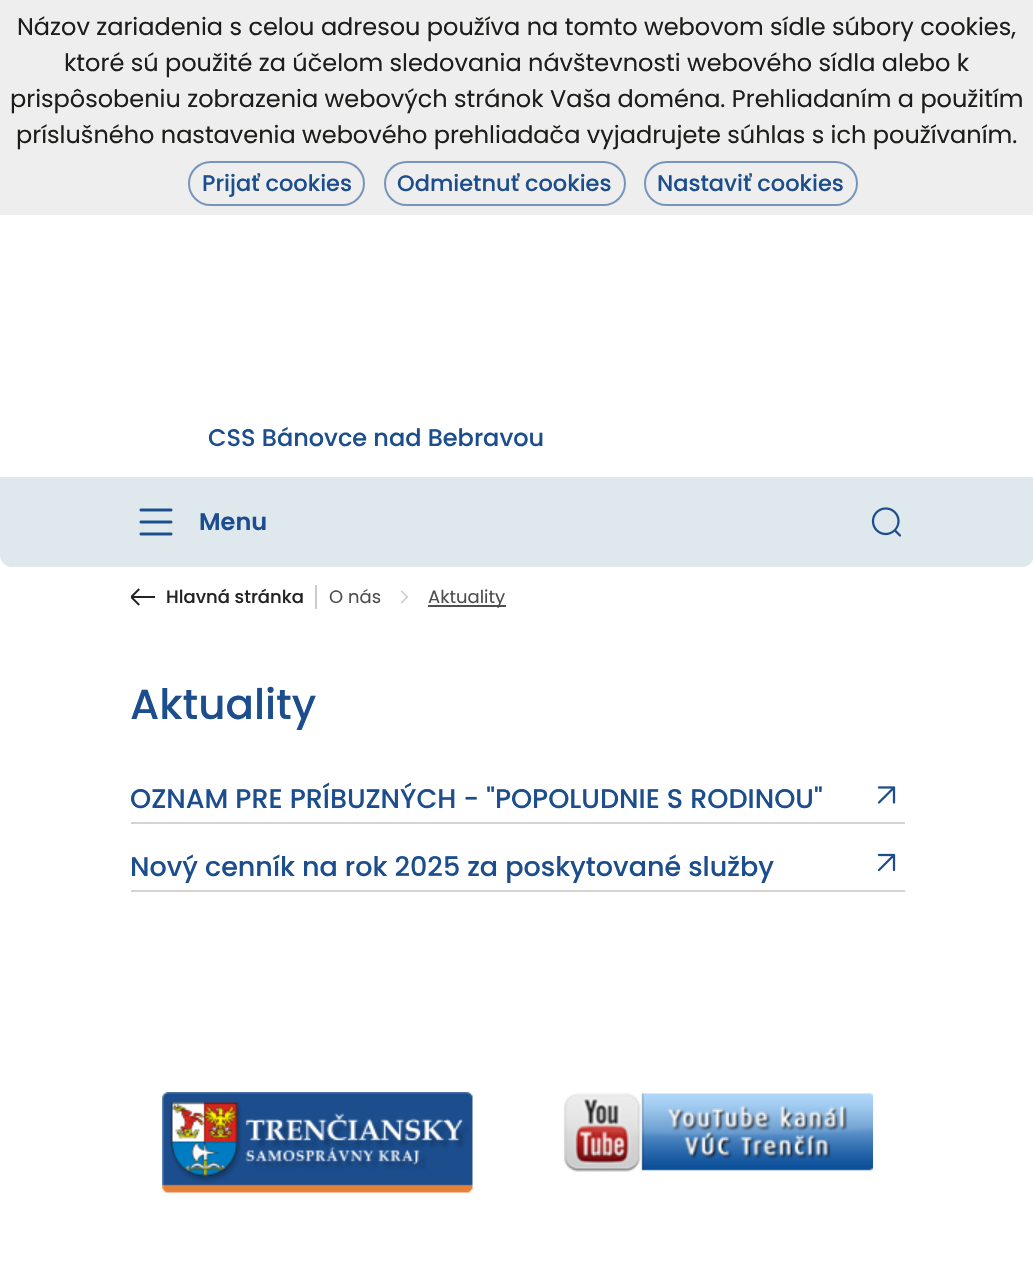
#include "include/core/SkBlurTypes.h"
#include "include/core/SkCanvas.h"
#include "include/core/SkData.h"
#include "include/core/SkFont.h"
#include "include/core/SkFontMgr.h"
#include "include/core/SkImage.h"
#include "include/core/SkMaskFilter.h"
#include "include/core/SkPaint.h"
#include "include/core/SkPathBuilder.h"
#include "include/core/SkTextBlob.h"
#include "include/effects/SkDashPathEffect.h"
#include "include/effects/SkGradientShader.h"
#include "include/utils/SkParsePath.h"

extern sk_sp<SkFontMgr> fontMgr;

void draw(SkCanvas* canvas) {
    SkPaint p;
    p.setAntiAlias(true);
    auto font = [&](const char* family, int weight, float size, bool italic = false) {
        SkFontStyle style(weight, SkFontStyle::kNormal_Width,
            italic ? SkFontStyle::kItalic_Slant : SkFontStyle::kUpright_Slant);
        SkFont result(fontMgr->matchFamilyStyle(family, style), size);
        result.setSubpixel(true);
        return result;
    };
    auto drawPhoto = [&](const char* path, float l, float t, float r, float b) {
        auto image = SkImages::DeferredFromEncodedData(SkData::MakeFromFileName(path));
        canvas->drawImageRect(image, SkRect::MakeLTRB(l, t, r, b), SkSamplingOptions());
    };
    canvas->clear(0xFFFFFFFF);
    p.setColor(0xFFEEEEEE);
    canvas->drawRect(SkRect::MakeLTRB(0, 0, 1033, 215), p);
    auto font1 = font("Poppins", 400, 24);
    p.setColor(0xFF1D1D1B);
    {
        const struct { const char* s; float x, y; } items[] = {
            {"Názov zariadenia s celou adresou používa na tomto webovom sídle súbory cookies,", 17, 35},
            {"ktoré sú použité za účelom sledovania návštevnosti webového sídla alebo k", 64, 71},
            {"prispôsobeniu zobrazenia webových stránok Vaša doména. Prehliadaním a použitím", 10, 107},
            {"príslušného nastavenia webového prehliadača vyjadrujete súhlas s ich používaním.", 16, 143},
        };
        for (auto [s, x, y] : items) {
            canvas->drawString(s, x, y, font1, p);
        }
    }
    p.setStyle(SkPaint::kStroke_Style);
    p.setStrokeWidth(2);
    p.setColor(0xFF7795BB);
    canvas->drawRoundRect(SkRect::MakeLTRB(189, 162, 364, 205), 21.5f, 21.5f, p);
    auto font2 = font("Poppins", 500, 22.5f);
    p.setStyle(SkPaint::kFill_Style);
    p.setColor(0xFF1C4E8E);
    canvas->drawString("Prijať cookies", 202, 191, font2, p);
    p.setStyle(SkPaint::kStroke_Style);
    p.setColor(0xFF7795BB);
    canvas->drawRoundRect(SkRect::MakeLTRB(385, 162, 625, 205), 21.5f, 21.5f, p);
    p.setStyle(SkPaint::kFill_Style);
    p.setColor(0xFF1C4E8E);
    canvas->drawString("Odmietnuť cookies", 397, 191, font2, p);
    p.setStyle(SkPaint::kStroke_Style);
    p.setColor(0xFF7795BB);
    canvas->drawRoundRect(SkRect::MakeLTRB(645, 162, 857, 205), 21.5f, 21.5f, p);
    p.setStyle(SkPaint::kFill_Style);
    p.setColor(0xFF1C4E8E);
    canvas->drawString("Nastaviť cookies", 657, 191, font2, p);
    auto font3 = font("Poppins", 500, 24);
    canvas->drawString("CSS Bánovce nad Bebravou", 208, 446, font3, p);
    p.setColor(0xFFDEE8ED);
    canvas->drawPath(SkPathBuilder().moveTo(0, 477).lineTo(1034, 477).lineTo(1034, 555).cubicTo(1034, 561.5f, 1028.5f, 567, 1022, 567).lineTo(12, 567).cubicTo(5.5f, 567, 0, 561.5f, 0, 555).close().detach(), p);
    drawPhoto("media/1.png", 139, 508, 173, 536);
    auto font4 = font("Poppins", 600, 24);
    p.setColor(0xFF1C4E8E);
    canvas->drawString("Menu", 199, 530, font4, p);
    drawPhoto("media/2.png", 871, 507, 902, 537);
    drawPhoto("media/3.png", 131, 588, 155, 606);
    auto font5 = font("Poppins", 500, 18);
    p.setColor(0xFF232323);
    canvas->drawString("Hlavná stránka", 166, 603, font5, p);
    p.setColor(0xFFCCCCCC);
    canvas->drawRect(SkRect::MakeLTRB(315, 585, 317, 609), p);
    auto font6 = font("Poppins", 400, 18);
    p.setColor(0xFF4F4F4F);
    canvas->drawString("O nás", 329, 603, font6, p);
    drawPhoto("media/4.png", 400, 590, 408, 604);
    canvas->drawRect(SkRect::MakeLTRB(428, 605, 506, 607), p);
    canvas->drawString("Aktuality", 428, 603, font6, p);
    auto font7 = font("Poppins", 500, 42);
    p.setColor(0xFF1C4E8E);
    canvas->drawString("Aktuality", 130, 719, font7, p);
    p.setColor(0xFFD3D3D3);
    canvas->drawRect(SkRect::MakeLTRB(131, 822, 905, 824), p);
    auto font8 = font("Poppins", 500, 27);
    p.setColor(0xFF1C4E8E);
    canvas->drawString("OZNAM PRE PRÍBUZNÝCH - \"POPOLUDNIE S RODINOU\"", 130, 808, font8, p);
    drawPhoto("media/5.png", 877, 786, 896, 804);
    p.setColor(0xFFD3D3D3);
    canvas->drawRect(SkRect::MakeLTRB(131, 890, 905, 892), p);
    p.setColor(0xFF1C4E8E);
    canvas->drawString("Nový cenník na rok 2025 za poskytované služby", 130, 876, font8, p);
    drawPhoto("media/6.png", 877, 853, 896, 872);
    drawPhoto("media/7.png", 162, 1092, 473, 1193);
    drawPhoto("media/8.png", 563, 1093, 873, 1172);
}
